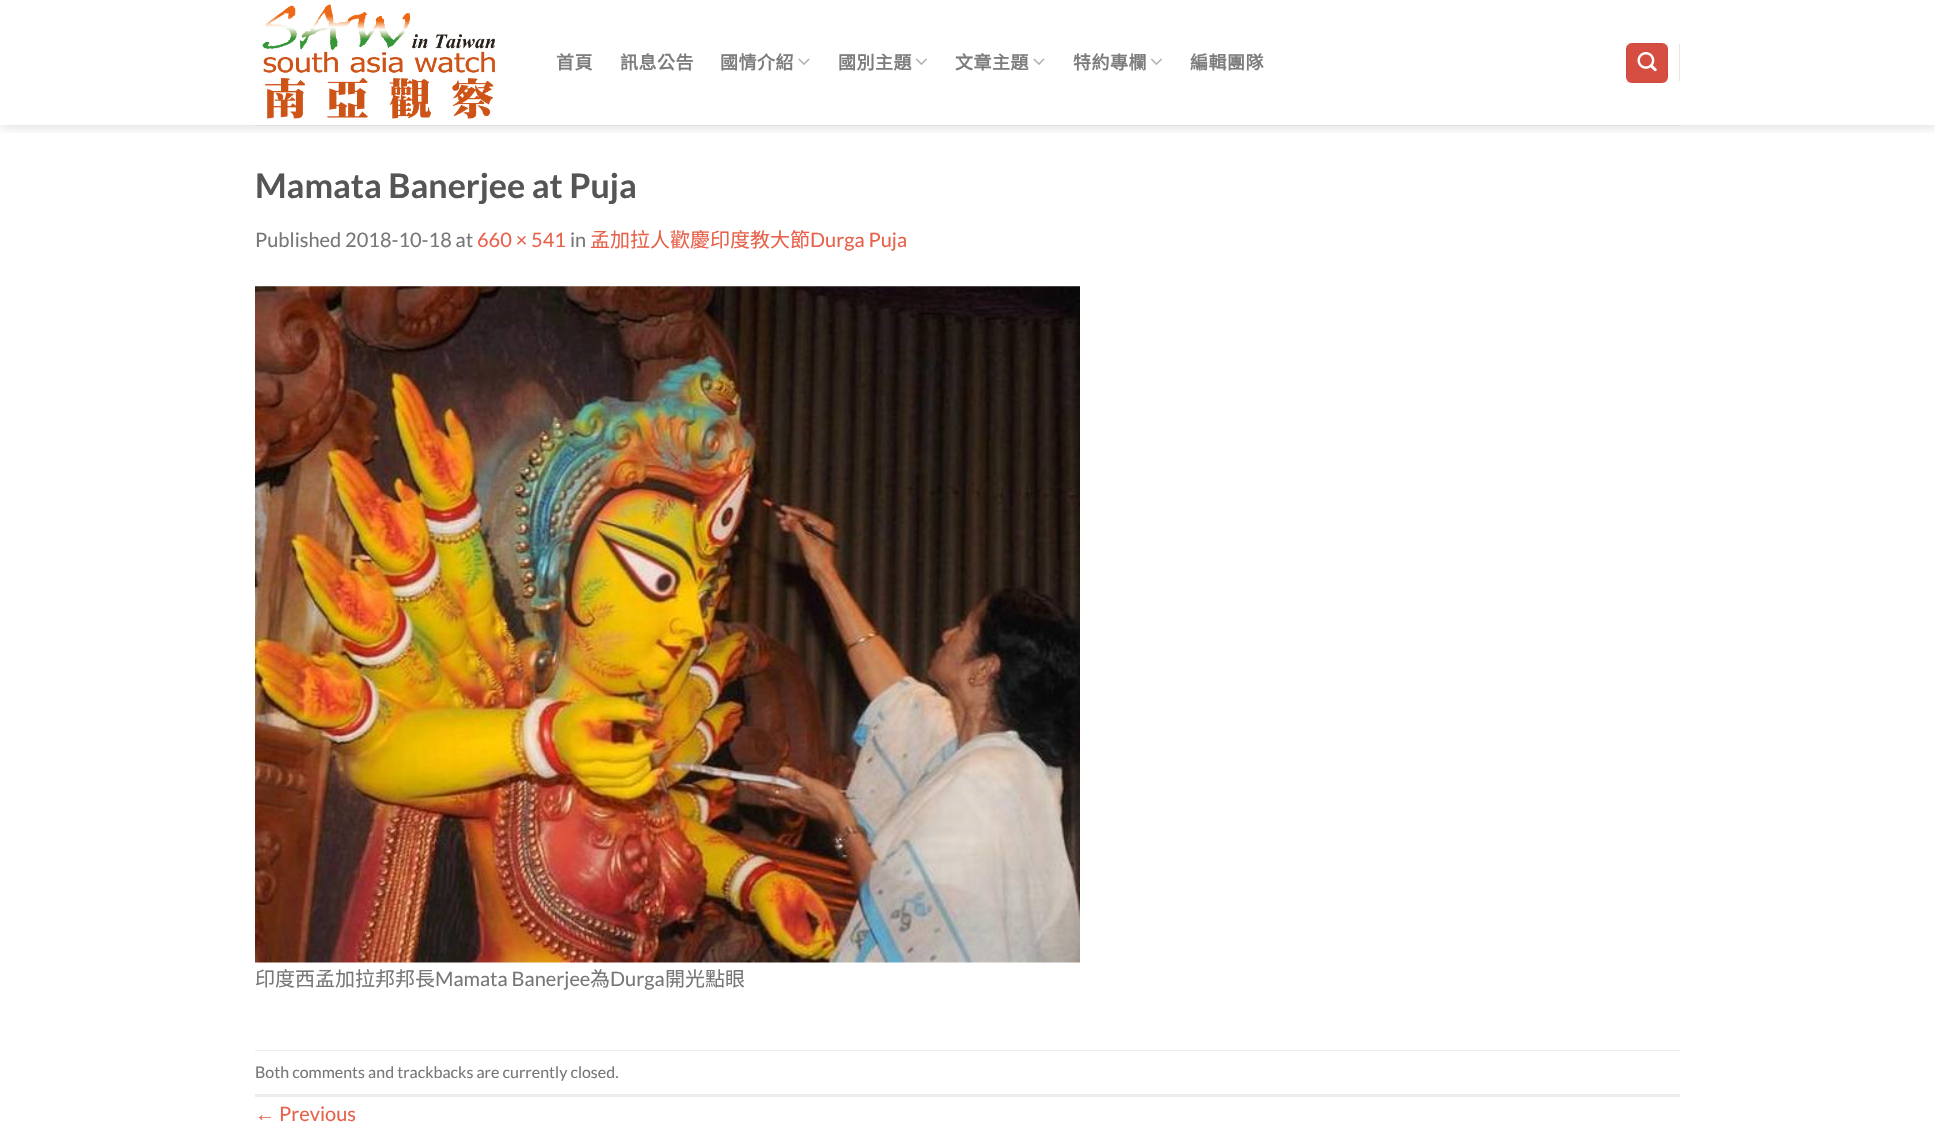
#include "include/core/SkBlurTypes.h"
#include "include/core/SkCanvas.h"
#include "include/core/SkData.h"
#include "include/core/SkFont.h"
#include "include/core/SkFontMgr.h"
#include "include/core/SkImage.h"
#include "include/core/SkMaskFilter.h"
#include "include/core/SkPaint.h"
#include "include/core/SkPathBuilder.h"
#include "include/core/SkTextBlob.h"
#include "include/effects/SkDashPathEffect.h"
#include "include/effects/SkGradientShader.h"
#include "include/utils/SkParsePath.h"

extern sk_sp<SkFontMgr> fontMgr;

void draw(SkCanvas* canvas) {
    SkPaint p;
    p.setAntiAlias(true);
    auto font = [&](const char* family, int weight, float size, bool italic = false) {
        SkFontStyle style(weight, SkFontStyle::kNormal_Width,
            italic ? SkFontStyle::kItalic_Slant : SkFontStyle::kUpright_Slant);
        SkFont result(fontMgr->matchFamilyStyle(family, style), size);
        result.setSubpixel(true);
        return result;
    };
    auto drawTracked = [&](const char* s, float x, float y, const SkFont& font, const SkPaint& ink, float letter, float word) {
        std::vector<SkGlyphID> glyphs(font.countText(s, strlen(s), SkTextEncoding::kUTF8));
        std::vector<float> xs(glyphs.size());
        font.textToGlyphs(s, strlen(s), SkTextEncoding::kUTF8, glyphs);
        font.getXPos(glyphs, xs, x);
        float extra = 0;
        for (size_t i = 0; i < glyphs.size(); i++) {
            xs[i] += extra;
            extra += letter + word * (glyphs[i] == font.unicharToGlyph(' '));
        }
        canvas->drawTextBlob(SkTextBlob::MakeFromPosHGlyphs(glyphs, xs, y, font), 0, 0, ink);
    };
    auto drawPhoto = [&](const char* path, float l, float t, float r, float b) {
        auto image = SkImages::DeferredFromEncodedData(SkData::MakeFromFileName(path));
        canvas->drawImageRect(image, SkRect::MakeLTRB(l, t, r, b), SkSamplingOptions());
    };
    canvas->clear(0xFFFFFFFF);
    canvas->save();
    canvas->clipRect(SkRect::MakeLTRB(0, 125, 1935, 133));
    p.setColor(0x26000000);
    p.setMaskFilter(SkMaskFilter::MakeBlur(kNormal_SkBlurStyle, 6));
    canvas->drawRect(SkRect::MakeLTRB(1, 1, 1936, 126), p);
    p.setMaskFilter(nullptr);
    canvas->restore();
    drawPhoto("media/1.png", 262, 4, 495, 119);
    auto font1 = font("Noto Sans CJK TC", 700, 18);
    p.setColor(0xFF7D7D7D);
    {
        const struct { const char* s; float x, y; } items[] = {
            {"首頁", 556, 69},
            {"訊息公告", 620, 69},
            {"國情介紹", 720, 69},
        };
        for (auto [s, x, y] : items) {
            drawTracked(s, x, y, font1, p, 0.5f, 0);
        }
    }
    drawPhoto("media/2.png", 798, 58, 810, 65);
    drawTracked("國別主題", 838, 69, font1, p, 0.5f, 0);
    drawPhoto("media/3.png", 916, 58, 927, 65);
    drawTracked("文章主題", 955, 69, font1, p, 0.5f, 0);
    drawPhoto("media/2.png", 1033, 58, 1045, 65);
    drawTracked("特約專欄", 1073, 69, font1, p, 0.5f, 0);
    drawPhoto("media/3.png", 1151, 58, 1162, 65);
    drawTracked("編輯團隊", 1190, 69, font1, p, 0.5f, 0);
    p.setColor(0xFFD64E41);
    canvas->drawRoundRect(SkRect::MakeLTRB(1626, 43, 1668, 83), 6, 6, p);
    p.setStyle(SkPaint::kStroke_Style);
    p.setStrokeWidth(1);
    p.setColor(0x0D000000);
    canvas->drawRect(SkRect::MakeLTRB(1626.5f, 43.5f, 1667.5f, 82.5f), p);
    drawPhoto("media/4.png", 1637, 52, 1657, 72);
    p.setStyle(SkPaint::kFill_Style);
    p.setColor(0xFFE6E6E6);
    canvas->drawRect(SkRect::MakeLTRB(1679, 44, 1680, 81), p);
    p.setColor(0xFFDFDFDF);
    canvas->drawRect(SkRect::MakeLTRB(255, 125, 1680, 126), p);
    auto font2 = font("Lato", 700, 34);
    p.setColor(0xFF555555);
    canvas->drawString("Mamata Banerjee at Puja", 255, 198, font2, p);
    auto font3 = font("Lato", 400, 20);
    p.setColor(0xFF777777);
    canvas->drawString("Published 2018-10-18 at", 255, 247, font3, p);
    p.setColor(0xFFE6624B);
    canvas->drawString("660 × 541", 477, 247, font3, p);
    p.setColor(0xFF777777);
    canvas->drawString("in", 570, 247, font3, p);
    auto font4 = font("Noto Sans CJK TC", 400, 20);
    p.setColor(0xFFE6624B);
    canvas->drawString("孟加拉人歡慶印度教大節", 590, 247, font4, p);
    canvas->drawString("Durga Puja", 810, 247, font3, p);
    drawPhoto("media/5.png", 255, 286, 1080, 963);
    p.setColor(0xFF777777);
    canvas->drawString("印度西孟加拉邦邦長", 255, 986, font4, p);
    canvas->drawString("Mamata Banerjee", 435, 986, font3, p);
    canvas->drawString("為", 590, 986, font4, p);
    canvas->drawString("Durga", 610, 986, font3, p);
    canvas->drawString("開光點眼", 665, 986, font4, p);
    p.setColor(0xFFECECEC);
    canvas->drawRect(SkRect::MakeLTRB(255, 1050, 1680, 1051), p);
    canvas->drawRect(SkRect::MakeLTRB(255, 1094, 1680, 1097), p);
    auto font5 = font("Lato", 400, 16);
    p.setColor(0xFF777777);
    canvas->drawString("Both comments and trackbacks are currently closed.", 255, 1078, font5, p);
    auto font6 = font("Liberation Sans", 400, 20);
    p.setColor(0xFFE6624B);
    canvas->drawString("←", 255, 1121, font6, p);
    canvas->drawString("Previous", 279, 1121, font3, p);
}
